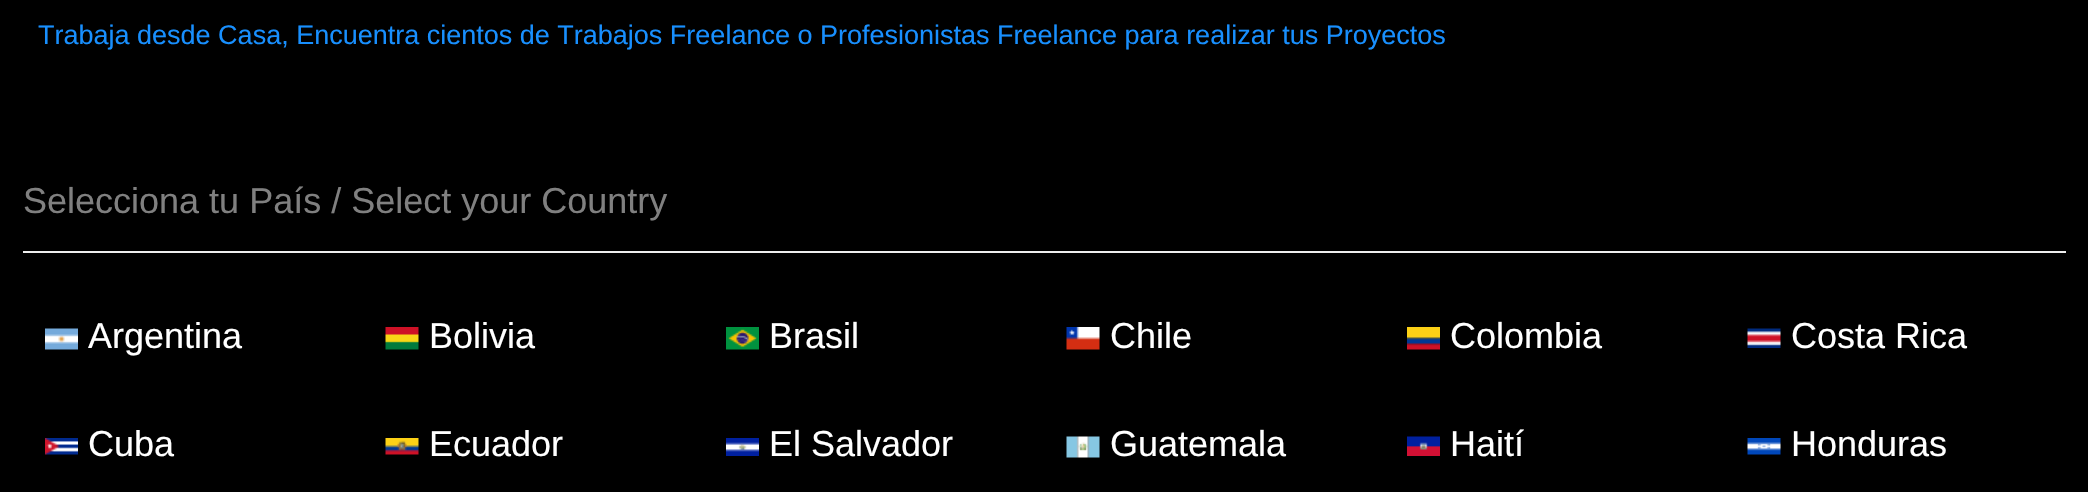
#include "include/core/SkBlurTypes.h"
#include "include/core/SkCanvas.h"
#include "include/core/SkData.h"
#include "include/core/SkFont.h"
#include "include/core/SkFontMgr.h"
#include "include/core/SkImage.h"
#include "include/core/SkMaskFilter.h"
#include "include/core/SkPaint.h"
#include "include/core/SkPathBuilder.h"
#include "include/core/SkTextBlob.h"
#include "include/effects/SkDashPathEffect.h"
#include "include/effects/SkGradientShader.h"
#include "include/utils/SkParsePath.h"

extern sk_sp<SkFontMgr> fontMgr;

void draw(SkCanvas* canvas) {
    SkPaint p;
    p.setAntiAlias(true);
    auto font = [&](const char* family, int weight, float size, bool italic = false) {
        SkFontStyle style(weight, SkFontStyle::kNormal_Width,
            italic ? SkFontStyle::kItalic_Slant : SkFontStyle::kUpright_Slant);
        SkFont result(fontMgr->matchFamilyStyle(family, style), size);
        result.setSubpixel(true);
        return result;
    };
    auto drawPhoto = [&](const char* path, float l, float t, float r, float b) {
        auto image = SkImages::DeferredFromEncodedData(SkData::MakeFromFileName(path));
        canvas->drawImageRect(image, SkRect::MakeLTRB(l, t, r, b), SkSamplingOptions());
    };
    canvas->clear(0xFF000000);
    auto font1 = font("Liberation Sans", 400, 27);
    p.setColor(0xFF188FFE);
    canvas->drawString("Trabaja desde Casa, Encuentra cientos de Trabajos Freelance o Profesionistas Freelance para realizar tus Proyectos", 38, 44, font1, p);
    auto font2 = font("Liberation Sans", 400, 36);
    p.setColor(0xFF808080);
    canvas->drawString("Selecciona tu País / Select your Country", 23, 213, font2, p);
    p.setColor(0xFFEEEEEE);
    canvas->drawRect(SkRect::MakeLTRB(23, 251, 2066, 253), p);
    drawPhoto("media/1.png", 45, 328, 78, 350);
    p.setColor(0xFFFFFFFF);
    canvas->drawString("Argentina", 88, 348, font2, p);
    drawPhoto("media/2.png", 385, 327, 419, 350);
    canvas->drawString("Bolivia", 429, 348, font2, p);
    drawPhoto("media/3.png", 726, 327, 759, 350);
    canvas->drawString("Brasil", 769, 348, font2, p);
    drawPhoto("media/4.png", 1066, 327, 1100, 350);
    canvas->drawString("Chile", 1110, 348, font2, p);
    drawPhoto("media/5.png", 1407, 327, 1440, 350);
    canvas->drawString("Colombia", 1450, 348, font2, p);
    drawPhoto("media/6.png", 1747, 328, 1781, 348);
    canvas->drawString("Costa Rica", 1791, 348, font2, p);
    drawPhoto("media/7.png", 45, 438, 78, 455);
    canvas->drawString("Cuba", 88, 456, font2, p);
    drawPhoto("media/8.png", 385, 438, 419, 455);
    canvas->drawString("Ecuador", 429, 456, font2, p);
    drawPhoto("media/9.png", 726, 438, 759, 456);
    canvas->drawString("El Salvador", 769, 456, font2, p);
    drawPhoto("media/10.png", 1066, 436, 1100, 458);
    canvas->drawString("Guatemala", 1110, 456, font2, p);
    drawPhoto("media/11.png", 1407, 436, 1440, 456);
    canvas->drawString("Haití", 1450, 456, font2, p);
    drawPhoto("media/12.png", 1747, 438, 1781, 455);
    canvas->drawString("Honduras", 1791, 456, font2, p);
}
